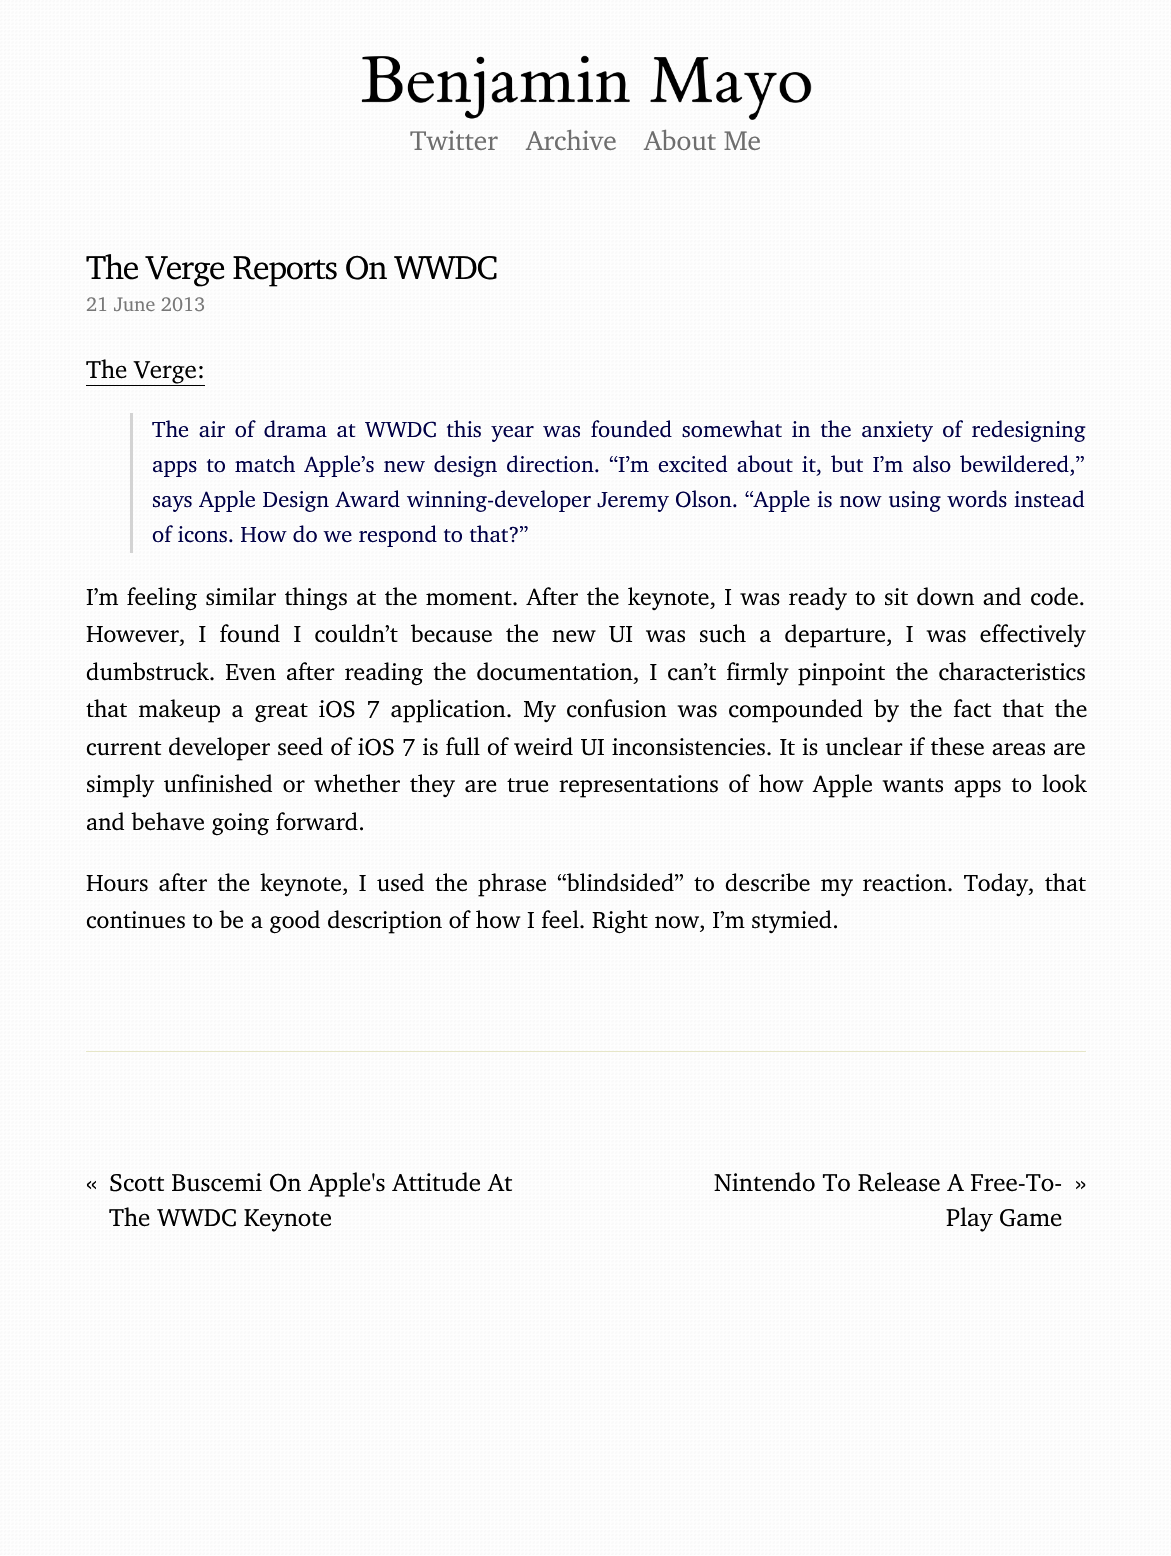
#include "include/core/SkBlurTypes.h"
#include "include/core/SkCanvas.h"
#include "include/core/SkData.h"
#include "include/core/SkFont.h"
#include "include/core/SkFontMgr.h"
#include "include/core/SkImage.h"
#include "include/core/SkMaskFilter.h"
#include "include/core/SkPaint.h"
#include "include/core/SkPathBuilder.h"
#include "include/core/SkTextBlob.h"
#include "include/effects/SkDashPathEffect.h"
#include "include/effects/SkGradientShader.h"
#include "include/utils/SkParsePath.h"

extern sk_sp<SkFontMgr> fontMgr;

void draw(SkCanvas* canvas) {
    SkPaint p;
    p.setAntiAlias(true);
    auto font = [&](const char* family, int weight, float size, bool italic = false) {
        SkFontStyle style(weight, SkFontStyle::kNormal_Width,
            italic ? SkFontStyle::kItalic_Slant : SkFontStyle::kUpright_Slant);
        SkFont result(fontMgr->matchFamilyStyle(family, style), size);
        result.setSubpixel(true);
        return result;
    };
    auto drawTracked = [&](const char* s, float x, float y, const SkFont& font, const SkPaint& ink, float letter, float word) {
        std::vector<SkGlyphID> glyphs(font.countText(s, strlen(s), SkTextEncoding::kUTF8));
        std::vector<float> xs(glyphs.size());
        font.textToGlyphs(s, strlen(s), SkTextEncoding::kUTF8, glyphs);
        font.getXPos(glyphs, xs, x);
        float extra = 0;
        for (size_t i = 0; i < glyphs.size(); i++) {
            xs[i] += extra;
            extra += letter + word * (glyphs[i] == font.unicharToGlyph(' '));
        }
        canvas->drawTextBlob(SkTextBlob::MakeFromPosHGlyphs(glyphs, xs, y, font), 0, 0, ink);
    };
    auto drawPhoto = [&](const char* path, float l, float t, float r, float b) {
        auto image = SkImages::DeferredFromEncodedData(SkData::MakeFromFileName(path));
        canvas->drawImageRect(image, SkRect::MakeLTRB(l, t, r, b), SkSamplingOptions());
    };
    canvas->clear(0xFFFFFFFF);
    drawPhoto("media/1.png", 0, 0, 1171, 1555);
    drawPhoto("media/2.png", 361, 55, 812, 120);
    auto font1 = font("Bitstream Charter", 400, 27.5f);
    p.setColor(0xFF6E6E6E);
    {
        const struct { const char* s; float x, y; } items[] = {
            {"Twitter", 410, 150},
            {"Archive", 526, 150},
            {"About Me", 644, 150},
        };
        for (auto [s, x, y] : items) {
            canvas->drawString(s, x, y, font1, p);
        }
    }
    auto font2 = font("Bitstream Charter", 400, 33.75f);
    p.setColor(0xFF000000);
    drawTracked("The Verge Reports On WWDC", 86, 279, font2, p, -1.25f, 0);
    auto font3 = font("Bitstream Charter", 400, 20);
    p.setColor(0xFF787878);
    canvas->drawString("21 June 2013", 86, 311, font3, p);
    auto font4 = font("Bitstream Charter", 400, 25);
    p.setColor(0xFF000000);
    canvas->drawString("The Verge:", 86, 378, font4, p);
    canvas->drawRect(SkRect::MakeLTRB(86, 385, 205, 386), p);
    p.setColor(0xFFD3D3D3);
    canvas->drawRect(SkRect::MakeLTRB(130, 413, 133, 553), p);
    auto font5 = font("Bitstream Charter", 400, 22.5f);
    p.setColor(0xFF000046);
    drawTracked("The air of drama at WWDC this year was founded somewhat in the anxiety of redesigning", 152, 437, font5, p, 0, 3.4f);
    drawTracked("apps to match Apple’s new design direction. “I’m excited about it, but I’m also bewildered,”", 152, 472, font5, p, 0, 2.75f);
    drawTracked("says Apple Design Award winning-developer Jeremy Olson. “Apple is now using words instead", 152, 507, font5, p, 0, 0.5f);
    canvas->drawString("of icons. How do we respond to that?”", 152, 542, font5, p);
    auto font6 = font("Bitstream Charter", 400, 23.75f);
    p.setColor(0xFF000000);
    drawTracked("I’m feeling similar things at the moment. After the keynote, I was ready to sit down and code.", 86, 605, font6, p, 0, 1.75f);
    drawTracked("However, I found I couldn’t because the new UI was such a departure, I was effectively", 86, 642, font6, p, 0, 6.6f);
    drawTracked("dumbstruck. Even after reading the documentation, I can’t firmly pinpoint the characteristics", 86, 680, font6, p, 0, 3.5f);
    drawTracked("that makeup a great iOS 7 application. My confusion was compounded by the fact that the", 86, 717, font6, p, 0, 4.25f);
    drawTracked("current developer seed of iOS 7 is full of weird UI inconsistencies. It is unclear if these areas are", 86, 755, font6, p, 0, 0.4f);
    drawTracked("simply unfinished or whether they are true representations of how Apple wants apps to look", 86, 792, font6, p, 0, 3.25f);
    canvas->drawString("and behave going forward.", 86, 830, font6, p);
    drawTracked("Hours after the keynote, I used the phrase “blindsided” to describe my reaction. Today, that", 86, 891, font6, p, 0, 3.6f);
    canvas->drawString("continues to be a good description of how I feel. Right now, I’m stymied.", 86, 928, font6, p);
    p.setColor(0xFFE6E6C8);
    canvas->drawRect(SkRect::MakeLTRB(86, 1051, 1086, 1052), p);
    p.setColor(0xFF000000);
    {
        const struct { const char* s; float x, y; } items[] = {
            {"«", 86, 1191},
            {"Scott Buscemi On Apple's Attitude At", 109, 1191},
            {"The WWDC Keynote", 109, 1226},
            {"Nintendo To Release A Free-To-", 714, 1191},
            {"»", 1075, 1191},
            {"Play Game", 946, 1226},
        };
        for (auto [s, x, y] : items) {
            canvas->drawString(s, x, y, font4, p);
        }
    }
}
